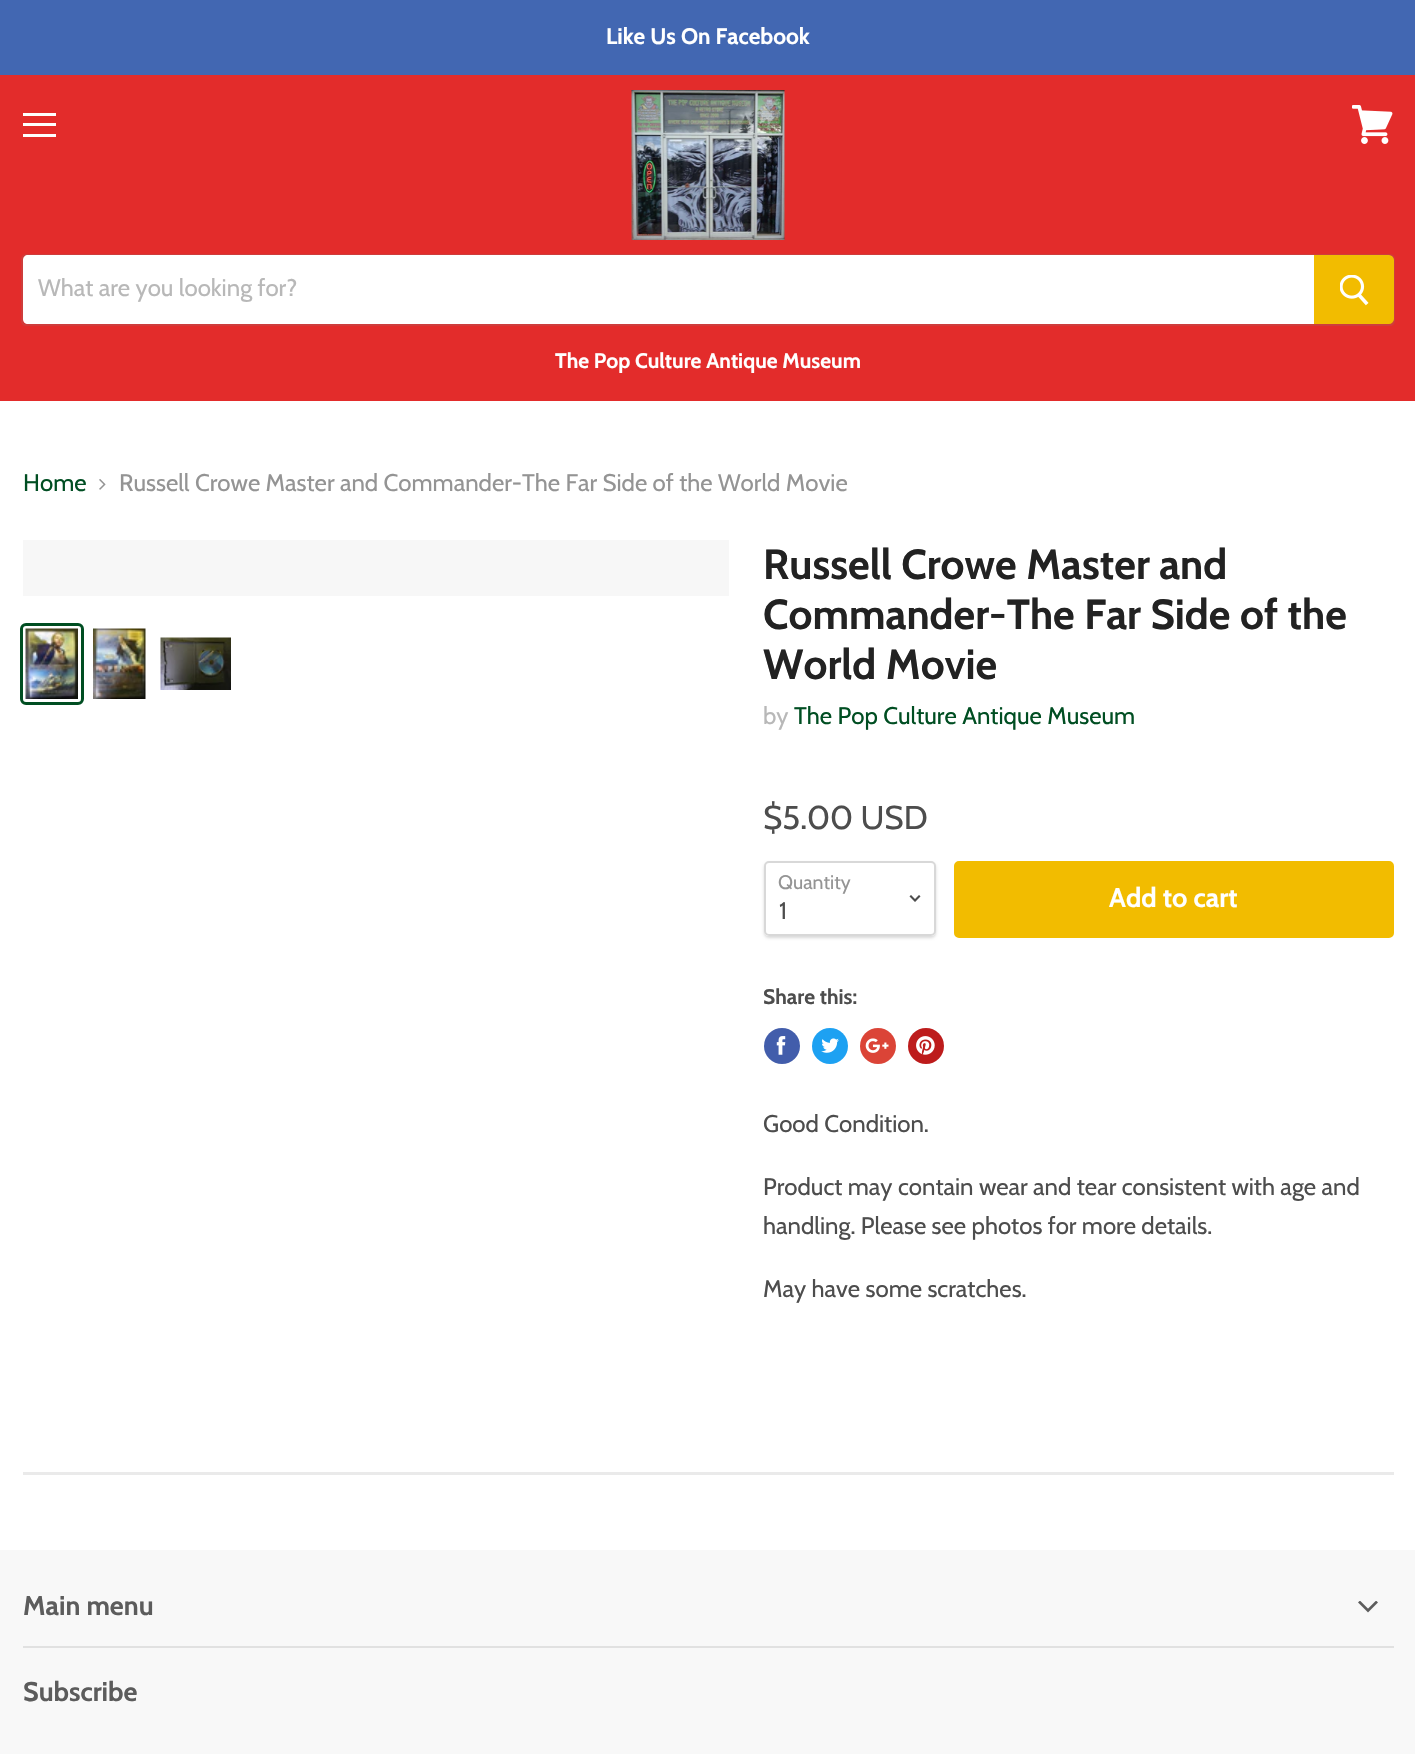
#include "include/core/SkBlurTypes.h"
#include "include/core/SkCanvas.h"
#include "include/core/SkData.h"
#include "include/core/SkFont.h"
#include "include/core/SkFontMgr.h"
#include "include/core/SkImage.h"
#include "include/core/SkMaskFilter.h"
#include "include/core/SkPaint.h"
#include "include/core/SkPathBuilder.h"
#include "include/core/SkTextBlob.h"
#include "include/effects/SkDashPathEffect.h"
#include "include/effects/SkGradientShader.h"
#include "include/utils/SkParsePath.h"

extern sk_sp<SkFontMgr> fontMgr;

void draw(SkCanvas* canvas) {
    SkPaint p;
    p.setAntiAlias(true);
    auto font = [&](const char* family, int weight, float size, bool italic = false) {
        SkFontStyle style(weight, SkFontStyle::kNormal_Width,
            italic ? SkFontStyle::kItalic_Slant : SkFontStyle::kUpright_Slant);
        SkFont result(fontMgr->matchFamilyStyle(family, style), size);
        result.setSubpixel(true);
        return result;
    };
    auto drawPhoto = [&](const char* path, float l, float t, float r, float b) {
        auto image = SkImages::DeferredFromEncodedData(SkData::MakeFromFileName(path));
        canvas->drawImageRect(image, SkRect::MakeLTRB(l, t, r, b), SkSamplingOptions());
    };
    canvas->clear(0xFFFFFFFF);
    p.setColor(0xFFE32C2B);
    canvas->drawRect(SkRect::MakeLTRB(0, 75, 1415, 401), p);
    p.setColor(0xFF4267B2);
    canvas->drawRect(SkRect::MakeLTRB(0, 0, 1415, 75), p);
    auto font1 = font("Cabin", 700, 22.5f);
    p.setColor(0xFFFFFFFF);
    canvas->drawString("Like Us On Facebook", 606, 44, font1, p);
    {
        const struct { float l, t, r, b; SkColor color; } items[] = {
            {23, 113, 56, 116, 0xFFFFFFFF},
            {23, 123, 56, 126, 0xFFFFFFFF},
            {23, 134, 56, 137, 0xFFFFFFFF},
        };
        for (auto [l, t, r, b, color] : items) {
            p.setColor(color);
            canvas->drawRect(SkRect::MakeLTRB(l, t, r, b), p);
        }
    }
    drawPhoto("media/1.png", 1352, 105, 1393, 144);
    drawPhoto("media/2.png", 631, 90, 785, 240);
    p.setStyle(SkPaint::kStroke_Style);
    p.setStrokeWidth(2);
    p.setColor(0x337F7F7F);
    canvas->drawPath(SkPathBuilder().moveTo(26, 255).lineTo(1389, 255).cubicTo(1392, 255, 1394, 257, 1394, 260).lineTo(1394, 320).cubicTo(1394, 323, 1392, 325, 1389, 325).lineTo(26, 325).cubicTo(24, 325, 22, 323, 22, 321).lineTo(22, 259).cubicTo(22, 257, 24, 255, 26, 255).close().detach(), p);
    p.setStyle(SkPaint::kFill_Style);
    p.setColor(0xFFFFFFFF);
    canvas->drawPath(SkPathBuilder().moveTo(28, 255).lineTo(1314, 255).lineTo(1314, 324).lineTo(28, 324).cubicTo(25, 324, 23, 322, 23, 319).lineTo(23, 260).cubicTo(23, 257, 25, 255, 28, 255).close().detach(), p);
    auto font2 = font("Cabin", 400, 24);
    p.setColor(0xFFB8B8B8);
    canvas->drawString("What are you looking for?", 38, 296, font2, p);
    p.setColor(0xFFF2BC00);
    canvas->drawPath(SkPathBuilder().moveTo(1315, 256).lineTo(1389, 256).cubicTo(1391, 256, 1393, 258, 1393, 260).lineTo(1393, 319).cubicTo(1393, 321, 1391, 323, 1389, 323).lineTo(1315, 323).close().detach(), p);
    p.setStyle(SkPaint::kStroke_Style);
    canvas->drawPath(SkPathBuilder().moveTo(1315, 256).lineTo(1389, 256).cubicTo(1391, 256, 1393, 258, 1393, 260).lineTo(1393, 319).cubicTo(1393, 321, 1391, 323, 1389, 323).lineTo(1315, 323).close().detach(), p);
    drawPhoto("media/3.png", 1340, 275, 1369, 306);
    auto font3 = font("Cabin", 700, 21);
    p.setStyle(SkPaint::kFill_Style);
    p.setColor(0xFFFFFFFF);
    canvas->drawString("The Pop Culture Antique Museum", 555, 368, font3, p);
    p.setColor(0xFF004E22);
    canvas->drawString("Home", 23, 491, font2, p);
    drawPhoto("media/4.png", 99, 479, 106, 490);
    p.setColor(0xFF949494);
    canvas->drawString("Russell Crowe Master and Commander-The Far Side of the World Movie", 119, 491, font2, p);
    p.setColor(0xFFF7F7F7);
    canvas->drawRect(SkRect::MakeLTRB(23, 540, 729, 596), p);
    p.setStyle(SkPaint::kStroke_Style);
    p.setStrokeWidth(3);
    p.setColor(0xFF004E22);
    canvas->drawRoundRect(SkRect::MakeLTRB(21.5f, 624.5f, 82.5f, 703.5f), 4.5f, 4.5f, p);
    drawPhoto("media/5.png", 25, 628, 78, 699);
    drawPhoto("media/6.png", 93, 628, 146, 699);
    drawPhoto("media/7.png", 160, 637, 231, 690);
    auto font4 = font("Cabin", 700, 42);
    p.setStyle(SkPaint::kFill_Style);
    p.setColor(0xFF222222);
    {
        const struct { const char* s; float x, y; } items[] = {
            {"Russell Crowe Master and", 763, 579},
            {"Commander-The Far Side of the", 763, 629},
            {"World Movie", 763, 679},
        };
        for (auto [s, x, y] : items) {
            canvas->drawString(s, x, y, font4, p);
        }
    }
    p.setColor(0xFFB8B8B8);
    canvas->drawString("by", 763, 724, font2, p);
    p.setColor(0xFF004E22);
    canvas->drawString("The Pop Culture Antique Museum", 794, 724, font2, p);
    auto font5 = font("Cabin", 400, 33);
    p.setColor(0xFF4D4D4D);
    canvas->drawString("$5.00 USD", 763, 829, font5, p);
    canvas->save();
    canvas->clipPath(SkPathBuilder(SkPathFillType::kEvenOdd).moveTo(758, 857).lineTo(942, 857).lineTo(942, 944).lineTo(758, 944).close().moveTo(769, 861).lineTo(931, 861).cubicTo(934, 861, 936, 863, 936, 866).lineTo(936, 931).cubicTo(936, 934, 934, 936, 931, 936).lineTo(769, 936).cubicTo(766, 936, 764, 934, 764, 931).lineTo(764, 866).cubicTo(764, 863, 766, 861, 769, 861).close().detach(), true);
    p.setColor(0x26000000);
    p.setMaskFilter(SkMaskFilter::MakeBlur(kNormal_SkBlurStyle, 1.5f));
    canvas->drawRoundRect(SkRect::MakeLTRB(764, 863, 936, 938), 5, 5, p);
    p.setMaskFilter(nullptr);
    canvas->restore();
    p.setStyle(SkPaint::kStroke_Style);
    p.setStrokeWidth(2);
    p.setColor(0x4D7F7F7F);
    canvas->drawRoundRect(SkRect::MakeLTRB(765, 862, 935, 935), 4, 4, p);
    auto font6 = font("Cabin", 400, 19.5f);
    p.setStyle(SkPaint::kFill_Style);
    p.setColor(0xFF949494);
    canvas->drawString("Quantity", 778, 889, font6, p);
    drawPhoto("media/8.png", 909, 895, 921, 902);
    p.setColor(0xFF4D4D4D);
    canvas->drawString("1", 779, 919, font2, p);
    p.setColor(0xFFF2BC00);
    canvas->drawRoundRect(SkRect::MakeLTRB(955, 862, 1393, 937), 4, 4, p);
    p.setStyle(SkPaint::kStroke_Style);
    canvas->drawRoundRect(SkRect::MakeLTRB(955, 862, 1393, 937), 4, 4, p);
    auto font7 = font("Cabin", 700, 27);
    p.setStyle(SkPaint::kFill_Style);
    p.setColor(0xFFFFFFFF);
    canvas->drawString("Add to cart", 1109, 907, font7, p);
    p.setColor(0xFF4D4D4D);
    canvas->drawString("Share this:", 763, 1004, font3, p);
    p.setColor(0xFF425DAB);
    canvas->drawCircle(782, 1046, 18, p);
    drawPhoto("media/9.png", 776, 1036, 786, 1055);
    p.setColor(0xFF1DA1F2);
    canvas->drawCircle(830, 1046, 18, p);
    drawPhoto("media/10.png", 821, 1038, 839, 1053);
    p.setColor(0xFFDB4437);
    canvas->drawCircle(878, 1046, 18, p);
    drawPhoto("media/11.png", 865, 1038, 889, 1053);
    p.setColor(0xFFBD1C1C);
    canvas->drawCircle(926, 1046, 18, p);
    drawPhoto("media/12.png", 916, 1036, 935, 1055);
    p.setColor(0xFF4D4D4D);
    {
        const struct { const char* s; float x, y; } items[] = {
            {"Good Condition.", 763, 1132},
            {"Product may contain wear and tear consistent with age and", 763, 1195},
            {"handling. Please see photos for more details.", 763, 1234},
            {"May have some scratches.", 763, 1297},
        };
        for (auto [s, x, y] : items) {
            canvas->drawString(s, x, y, font2, p);
        }
    }
    {
        const struct { float l, t, r, b; SkColor color; } items[] = {
            {23, 1472, 1394, 1475, 0x297F7F7F},
            {0, 1550, 1415, 1754, 0xFFF8F8F8},
            {23, 1646, 1394, 1648, 0xFFE1E1E1},
        };
        for (auto [l, t, r, b, color] : items) {
            p.setColor(color);
            canvas->drawRect(SkRect::MakeLTRB(l, t, r, b), p);
        }
    }
    p.setColor(0xFF5C5C5C);
    canvas->drawString("Main menu", 23, 1615, font7, p);
    drawPhoto("media/13.png", 1358, 1601, 1378, 1613);
    canvas->drawString("Subscribe", 23, 1701, font7, p);
}
